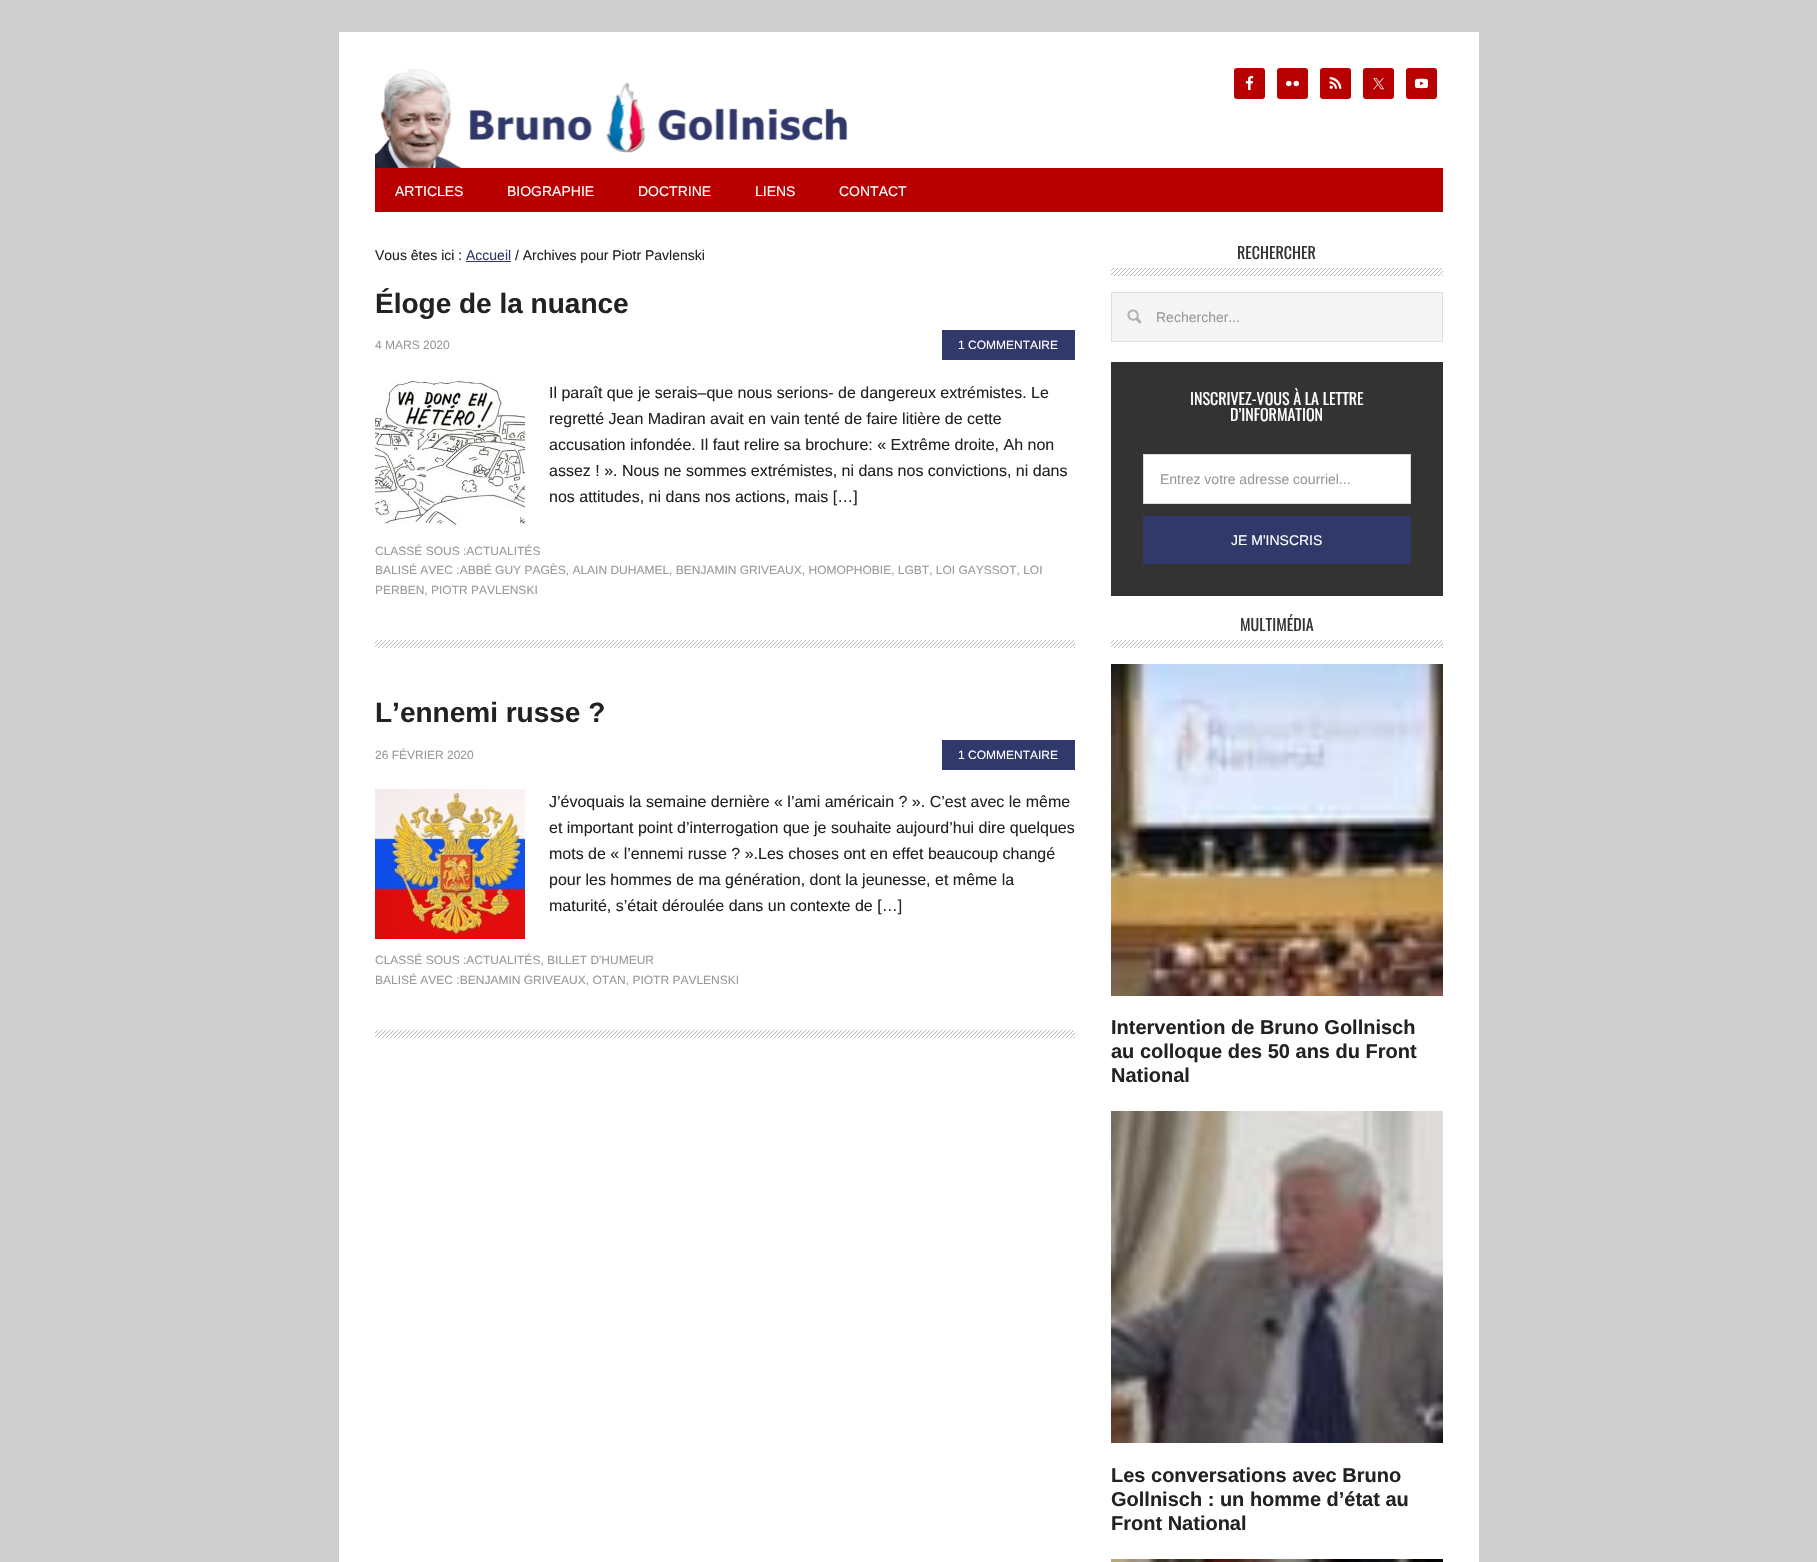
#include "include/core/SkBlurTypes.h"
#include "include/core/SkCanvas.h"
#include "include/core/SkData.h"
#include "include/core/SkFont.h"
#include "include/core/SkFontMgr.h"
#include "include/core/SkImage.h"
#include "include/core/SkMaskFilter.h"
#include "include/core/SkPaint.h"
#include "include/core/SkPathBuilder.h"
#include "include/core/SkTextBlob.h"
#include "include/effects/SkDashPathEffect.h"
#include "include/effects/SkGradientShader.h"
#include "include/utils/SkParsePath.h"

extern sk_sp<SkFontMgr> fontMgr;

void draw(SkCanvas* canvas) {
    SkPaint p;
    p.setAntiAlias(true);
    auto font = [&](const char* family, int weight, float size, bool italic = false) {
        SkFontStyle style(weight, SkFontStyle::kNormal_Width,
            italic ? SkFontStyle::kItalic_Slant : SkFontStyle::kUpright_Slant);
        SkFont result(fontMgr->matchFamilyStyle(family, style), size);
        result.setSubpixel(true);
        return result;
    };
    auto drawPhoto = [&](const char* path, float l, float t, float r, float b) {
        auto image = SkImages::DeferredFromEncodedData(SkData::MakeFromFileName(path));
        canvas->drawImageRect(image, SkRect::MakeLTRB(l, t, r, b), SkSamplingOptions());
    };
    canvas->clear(0xFFCFCFCF);
    p.setColor(0xFFFFFFFF);
    canvas->drawRect(SkRect::MakeLTRB(339, 32, 1479, 1562), p);
    drawPhoto("media/1.png", 375, 69, 848, 168);
    p.setColor(0xFFB80000);
    canvas->drawRoundRect(SkRect::MakeLTRB(1234, 68, 1265, 99), 3, 3, p);
    drawPhoto("media/2.png", 1245, 76, 1254, 90);
    canvas->drawRoundRect(SkRect::MakeLTRB(1277, 68, 1308, 99), 3, 3, p);
    drawPhoto("media/3.png", 1286, 80, 1299, 87);
    canvas->drawRoundRect(SkRect::MakeLTRB(1320, 68, 1351, 99), 3, 3, p);
    drawPhoto("media/4.png", 1329, 77, 1342, 89);
    canvas->drawRoundRect(SkRect::MakeLTRB(1363, 68, 1394, 99), 3, 3, p);
    drawPhoto("media/5.png", 1373, 78, 1385, 90);
    canvas->drawRoundRect(SkRect::MakeLTRB(1406, 68, 1437, 99), 3, 3, p);
    drawPhoto("media/6.png", 1414, 78, 1429, 89);
    canvas->drawRect(SkRect::MakeLTRB(375, 168, 1443, 212), p);
    auto font1 = font("Liberation Sans", 400, 14);
    p.setColor(0xFFFFFFFF);
    {
        const struct { const char* s; float x, y; } items[] = {
            {"ARTICLES", 395, 196},
            {"BIOGRAPHIE", 507, 196},
            {"DOCTRINE", 638, 196},
            {"LIENS", 755, 196},
            {"CONTACT", 839, 196},
        };
        for (auto [s, x, y] : items) {
            canvas->drawString(s, x, y, font1, p);
        }
    }
    p.setColor(0xFF222222);
    canvas->drawString("Vous êtes ici :", 375, 260, font1, p);
    p.setColor(0xFF31396B);
    canvas->drawString("Accueil", 466, 260, font1, p);
    canvas->drawRect(SkRect::MakeLTRB(466, 261, 511, 262), p);
    p.setColor(0xFF222222);
    canvas->drawString("/ Archives pour Piotr Pavlenski", 515, 260, font1, p);
    drawPhoto("media/7.png", 375, 640, 1075, 648);
    auto font2 = font("Liberation Sans", 700, 28);
    canvas->drawString("Éloge de la nuance", 375, 313, font2, p);
    auto font3 = font("Liberation Sans", 400, 12);
    p.setColor(0xFF999999);
    canvas->drawString("4 MARS 2020", 375, 349, font3, p);
    p.setColor(0xFF31396B);
    canvas->drawRect(SkRect::MakeLTRB(942, 330, 1075, 360), p);
    p.setColor(0xFFFFFFFF);
    canvas->drawString("1 COMMENTAIRE", 958, 349, font3, p);
    drawPhoto("media/8.png", 375, 380, 525, 530);
    auto font4 = font("Liberation Sans", 400, 16);
    p.setColor(0xFF222222);
    {
        const struct { const char* s; float x, y; } items[] = {
            {"Il paraît que je serais–que nous serions- de dangereux extrémistes. Le", 549, 398},
            {"regretté Jean Madiran avait en vain tenté de faire litière de cette", 549, 424},
            {"accusation infondée. Il faut relire sa brochure: « Extrême droite, Ah non", 549, 450},
            {"assez ! ». Nous ne sommes extrémistes, ni dans nos convictions, ni dans", 549, 476},
            {"nos attitudes, ni dans nos actions, mais […]", 549, 502},
        };
        for (auto [s, x, y] : items) {
            canvas->drawString(s, x, y, font4, p);
        }
    }
    p.setColor(0xFF999999);
    {
        const struct { const char* s; float x, y; } items[] = {
            {"CLASSÉ SOUS :ACTUALITÉS", 375, 555},
            {"BALISÉ AVEC :ABBÉ GUY PAGÈS, ALAIN DUHAMEL, BENJAMIN GRIVEAUX, HOMOPHOBIE, LGBT, LOI GAYSSOT, LOI", 375, 574},
            {"PERBEN, PIOTR PAVLENSKI", 375, 594},
        };
        for (auto [s, x, y] : items) {
            canvas->drawString(s, x, y, font3, p);
        }
    }
    drawPhoto("media/7.png", 375, 1030, 1075, 1038);
    p.setColor(0xFF222222);
    canvas->drawString("L’ennemi russe ?", 375, 722, font2, p);
    p.setColor(0xFF999999);
    canvas->drawString("26 FÉVRIER 2020", 375, 759, font3, p);
    p.setColor(0xFF31396B);
    canvas->drawRect(SkRect::MakeLTRB(942, 740, 1075, 770), p);
    p.setColor(0xFFFFFFFF);
    canvas->drawString("1 COMMENTAIRE", 958, 759, font3, p);
    drawPhoto("media/9.png", 375, 789, 525, 939);
    p.setColor(0xFF222222);
    {
        const struct { const char* s; float x, y; } items[] = {
            {"J’évoquais la semaine dernière « l’ami américain ? ». C’est avec le même", 549, 807},
            {"et important point d’interrogation que je souhaite aujourd’hui dire quelques", 549, 833},
            {"mots de « l’ennemi russe ? ».Les choses ont en effet beaucoup changé", 549, 859},
            {"pour les hommes de ma génération, dont la jeunesse, et même la", 549, 885},
            {"maturité, s’était déroulée dans un contexte de […]", 549, 911},
        };
        for (auto [s, x, y] : items) {
            canvas->drawString(s, x, y, font4, p);
        }
    }
    p.setColor(0xFF999999);
    canvas->drawString("CLASSÉ SOUS :ACTUALITÉS, BILLET D'HUMEUR", 375, 964, font3, p);
    canvas->drawString("BALISÉ AVEC :BENJAMIN GRIVEAUX, OTAN, PIOTR PAVLENSKI", 375, 984, font3, p);
    drawPhoto("media/10.png", 1111, 268, 1443, 276);
    auto font5 = font("Oswald", 400, 16);
    p.setColor(0xFF333333);
    canvas->drawString("RECHERCHER", 1237, 259, font5, p);
    p.setColor(0xFFF5F5F5);
    canvas->drawRect(SkRect::MakeLTRB(1112, 293, 1442, 341), p);
    drawPhoto("media/11.png", 1127, 309, 1142, 324);
    p.setStyle(SkPaint::kStroke_Style);
    p.setStrokeWidth(1);
    p.setColor(0xFFDDDDDD);
    canvas->drawRect(SkRect::MakeLTRB(1111.5f, 292.5f, 1442.5f, 341.5f), p);
    p.setStyle(SkPaint::kFill_Style);
    p.setColor(0xFF999999);
    canvas->drawString("Rechercher...", 1156, 322, font1, p);
    p.setColor(0xFF333333);
    canvas->drawRect(SkRect::MakeLTRB(1111, 362, 1443, 596), p);
    p.setColor(0xFFFFFFFF);
    canvas->drawString("INSCRIVEZ-VOUS À LA LETTRE", 1190, 405, font5, p);
    canvas->drawString("D’INFORMATION", 1230, 421, font5, p);
    canvas->drawRect(SkRect::MakeLTRB(1143.5f, 454.5f, 1410.5f, 503.5f), p);
    p.setStyle(SkPaint::kStroke_Style);
    p.setColor(0xFFDDDDDD);
    canvas->drawRect(SkRect::MakeLTRB(1143.5f, 454.5f, 1410.5f, 503.5f), p);
    p.setStyle(SkPaint::kFill_Style);
    p.setColor(0xFF999999);
    canvas->drawString("Entrez votre adresse courriel...", 1160, 484, font1, p);
    p.setColor(0xFF31396B);
    canvas->drawRect(SkRect::MakeLTRB(1143, 516, 1411, 564), p);
    p.setColor(0xFFFFFFFF);
    canvas->drawString("JE M'INSCRIS", 1231, 545, font1, p);
    drawPhoto("media/10.png", 1111, 640, 1443, 648);
    p.setColor(0xFF333333);
    canvas->drawString("MULTIMÉDIA", 1240, 631, font5, p);
    drawPhoto("media/12.png", 1111, 664, 1443, 996);
    auto font6 = font("Liberation Sans", 700, 20);
    p.setColor(0xFF222222);
    {
        const struct { const char* s; float x, y; } items[] = {
            {"Intervention de Bruno Gollnisch", 1111, 1034},
            {"au colloque des 50 ans du Front", 1111, 1058},
            {"National", 1111, 1082},
        };
        for (auto [s, x, y] : items) {
            canvas->drawString(s, x, y, font6, p);
        }
    }
    drawPhoto("media/13.png", 1111, 1111, 1443, 1443);
    {
        const struct { const char* s; float x, y; } items[] = {
            {"Les conversations avec Bruno", 1111, 1482},
            {"Gollnisch : un homme d’état au", 1111, 1506},
            {"Front National", 1111, 1530},
        };
        for (auto [s, x, y] : items) {
            canvas->drawString(s, x, y, font6, p);
        }
    }
    drawPhoto("media/14.png", 1111, 1559, 1443, 1562);
}
